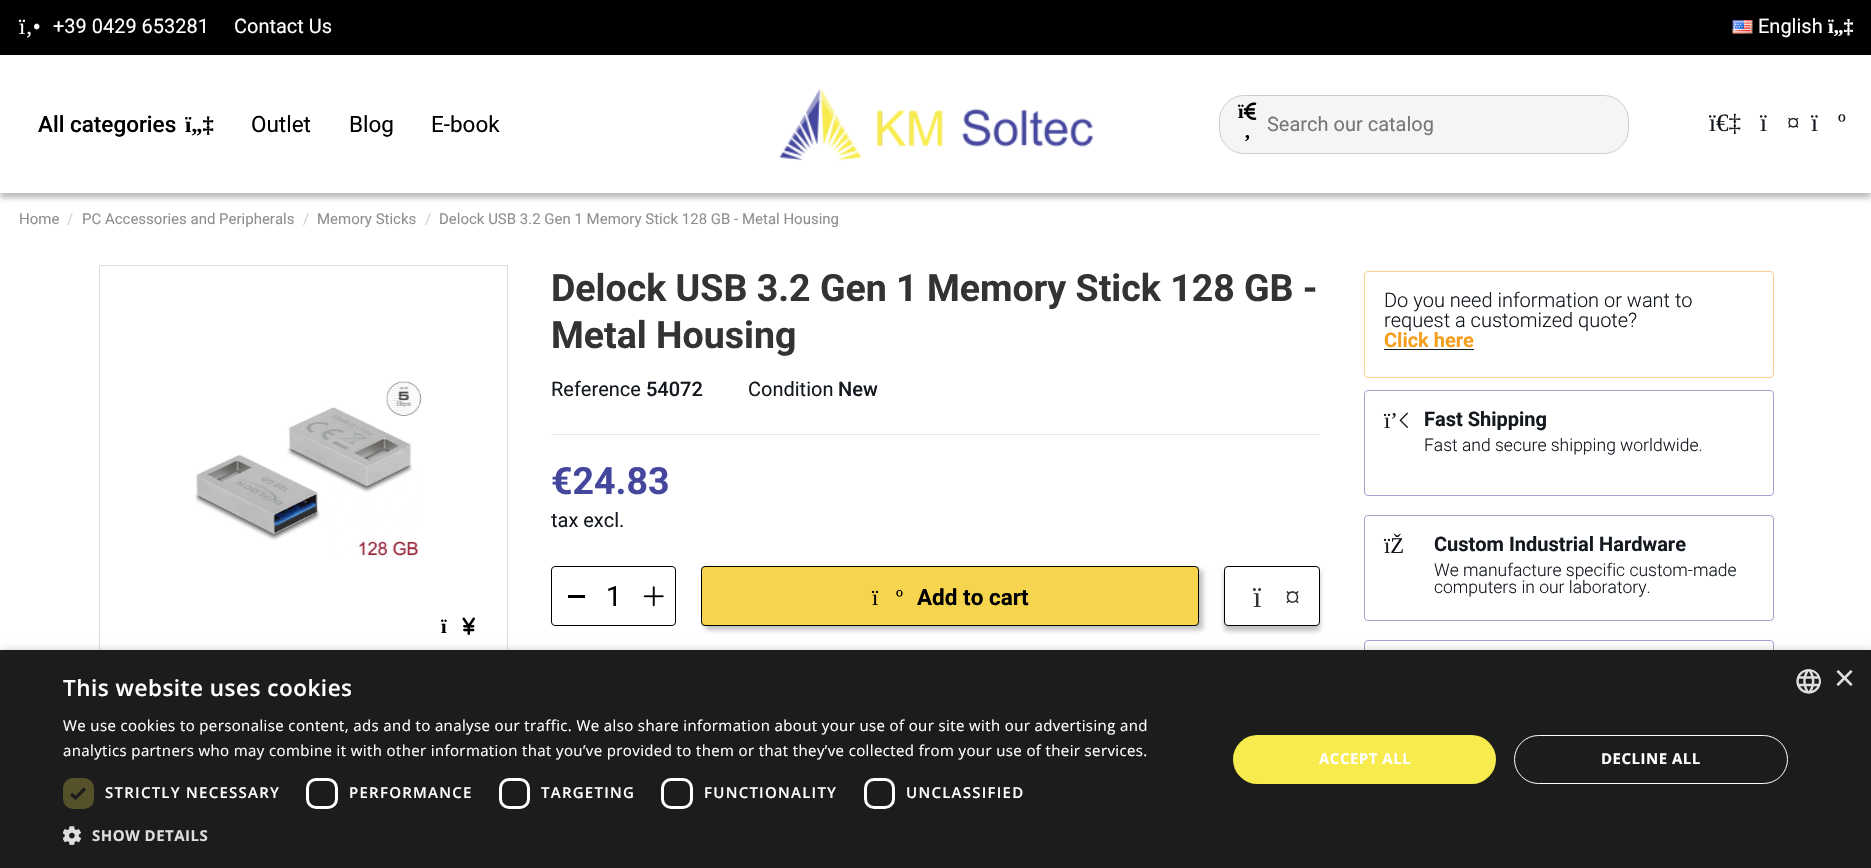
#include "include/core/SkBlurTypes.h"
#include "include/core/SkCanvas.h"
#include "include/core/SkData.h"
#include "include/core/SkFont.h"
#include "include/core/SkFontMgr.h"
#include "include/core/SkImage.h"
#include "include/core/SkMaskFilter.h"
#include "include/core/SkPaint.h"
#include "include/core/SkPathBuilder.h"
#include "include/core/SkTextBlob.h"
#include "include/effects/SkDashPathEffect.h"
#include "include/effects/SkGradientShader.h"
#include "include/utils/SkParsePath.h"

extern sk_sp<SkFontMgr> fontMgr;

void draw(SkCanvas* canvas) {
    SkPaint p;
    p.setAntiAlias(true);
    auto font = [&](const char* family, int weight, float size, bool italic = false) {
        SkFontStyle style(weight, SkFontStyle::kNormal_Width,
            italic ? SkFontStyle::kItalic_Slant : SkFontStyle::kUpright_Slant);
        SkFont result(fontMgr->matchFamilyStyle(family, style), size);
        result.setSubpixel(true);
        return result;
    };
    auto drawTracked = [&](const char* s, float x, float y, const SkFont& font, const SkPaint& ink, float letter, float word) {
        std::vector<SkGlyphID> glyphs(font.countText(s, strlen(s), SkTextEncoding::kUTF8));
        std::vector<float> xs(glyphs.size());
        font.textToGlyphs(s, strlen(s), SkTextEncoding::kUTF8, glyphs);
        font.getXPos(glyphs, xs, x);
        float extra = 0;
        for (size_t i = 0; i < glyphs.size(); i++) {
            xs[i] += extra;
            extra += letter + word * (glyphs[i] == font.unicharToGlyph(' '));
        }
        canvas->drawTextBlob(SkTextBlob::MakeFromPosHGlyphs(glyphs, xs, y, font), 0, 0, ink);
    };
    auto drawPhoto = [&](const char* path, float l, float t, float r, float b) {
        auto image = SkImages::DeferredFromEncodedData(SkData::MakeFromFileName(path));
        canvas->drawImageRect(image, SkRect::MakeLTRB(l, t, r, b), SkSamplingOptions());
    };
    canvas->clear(0xFFFFFFFF);
    canvas->save();
    canvas->clipPath(SkPathBuilder(SkPathFillType::kEvenOdd).moveTo(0, 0).lineTo(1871, 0).lineTo(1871, 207).lineTo(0, 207).close().moveTo(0, 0).lineTo(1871, 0).lineTo(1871, 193).lineTo(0, 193).close().detach(), true);
    p.setColor(0x40000000);
    p.setMaskFilter(SkMaskFilter::MakeBlur(kNormal_SkBlurStyle, 2.5f));
    canvas->drawRect(SkRect::MakeLTRB(0, 5, 1871, 198), p);
    p.setMaskFilter(nullptr);
    canvas->restore();
    p.setColor(0xFF000000);
    canvas->drawRect(SkRect::MakeLTRB(0, 0, 1871, 55), p);
    auto font1 = font("Liberation Serif", 400, 22.5f);
    p.setColor(0xFFFFFFFF);
    canvas->drawString("ï‚•", 19, 34, font1, p);
    auto font2 = font("Roboto", 400, 20);
    canvas->drawString("+39 0429 653281", 53, 33, font2, p);
    canvas->drawString("Contact Us", 234, 33, font2, p);
    drawPhoto("media/1.png", 1732, 20, 1753, 34);
    canvas->drawString("English", 1758, 33, font2, p);
    auto font3 = font("Liberation Serif", 700, 20);
    canvas->drawString("ï„‡", 1828, 33, font3, p);
    auto font4 = font("Roboto", 500, 22.5f);
    p.setColor(0xFF000000);
    canvas->drawString("All categories", 38, 132, font4, p);
    auto font5 = font("Liberation Serif", 700, 22.5f);
    canvas->drawString("ï„‡", 185, 132, font5, p);
    auto font6 = font("Roboto", 400, 22.5f);
    {
        const struct { const char* s; float x, y; } items[] = {
            {"Outlet", 251, 132},
            {"Blog", 349, 132},
            {"E-book", 431, 132},
        };
        for (auto [s, x, y] : items) {
            canvas->drawString(s, x, y, font6, p);
        }
    }
    drawPhoto("media/2.png", 779, 88, 1093, 161);
    p.setColor(0xFFF5F5F5);
    canvas->drawRoundRect(SkRect::MakeLTRB(1219.5f, 95.5f, 1628.5f, 153.5f), 24.5f, 24.5f, p);
    p.setStyle(SkPaint::kStroke_Style);
    p.setStrokeWidth(1);
    p.setColor(0xFFCDCDCD);
    canvas->drawRoundRect(SkRect::MakeLTRB(1219.5f, 95.5f, 1628.5f, 153.5f), 24.5f, 24.5f, p);
    drawPhoto("media/3.png", 1243, 102, 1257, 120);
    p.setStyle(SkPaint::kFill_Style);
    p.setColor(0xFF000000);
    canvas->drawString("ï", 1238, 118, font3, p);
    canvas->drawString("‚", 1244, 138, font3, p);
    p.setColor(0xFF777777);
    canvas->drawString("Search our catalog", 1267, 131, font2, p);
    auto font7 = font("Liberation Serif", 400, 25);
    p.setColor(0xFF14191F);
    {
        const struct { const char* s; float x, y; } items[] = {
            {"ï€‡", 1709, 131},
            {"ï", 1760, 131},
            {"¤", 1787, 131},
            {"ï", 1811, 131},
            {"º", 1838, 131},
        };
        for (auto [s, x, y] : items) {
            canvas->drawString(s, x, y, font7, p);
        }
    }
    auto font8 = font("Roboto", 400, 15);
    p.setColor(0xFF8F8F8F);
    canvas->drawString("Home", 19, 224, font8, p);
    p.setColor(0xFFD2D2D2);
    canvas->drawString("/", 67, 224, font8, p);
    p.setColor(0xFF8F8F8F);
    canvas->drawString("PC Accessories and Peripherals", 82, 224, font8, p);
    p.setColor(0xFFD2D2D2);
    canvas->drawString("/", 303, 224, font8, p);
    p.setColor(0xFF8F8F8F);
    canvas->drawString("Memory Sticks", 317, 224, font8, p);
    p.setColor(0xFFD2D2D2);
    canvas->drawString("/", 425, 224, font8, p);
    p.setColor(0xFF8F8F8F);
    canvas->drawString("Delock USB 3.2 Gen 1 Memory Stick 128 GB - Metal Housing", 439, 224, font8, p);
    auto font9 = font("Roboto", 700, 37.5f);
    p.setColor(0xFF333333);
    canvas->drawString("Delock USB 3.2 Gen 1 Memory Stick 128 GB -", 551, 301, font9, p);
    canvas->drawString("Metal Housing", 551, 348, font9, p);
    p.setColor(0xFF14191F);
    canvas->drawString("Reference", 551, 396, font2, p);
    auto font10 = font("Roboto", 500, 20);
    canvas->drawString("54072", 646, 396, font10, p);
    canvas->drawString("Condition", 748, 396, font2, p);
    canvas->drawString("New", 838, 396, font10, p);
    p.setColor(0xFFE7E7E7);
    canvas->drawRect(SkRect::MakeLTRB(551, 434, 1320, 435), p);
    p.setColor(0xFF45479E);
    canvas->drawString("€24.83", 551, 494, font9, p);
    p.setColor(0xFF14191F);
    canvas->drawString("tax excl.", 551, 527, font2, p);
    p.setStyle(SkPaint::kStroke_Style);
    p.setColor(0xFF000000);
    canvas->drawRoundRect(SkRect::MakeLTRB(551.5f, 566.5f, 675.5f, 625.5f), 3.5f, 3.5f, p);
    p.setStyle(SkPaint::kFill_Style);
    canvas->drawRect(SkRect::MakeLTRB(568, 595, 585, 598), p);
    drawPhoto("media/4.png", 643, 586, 664, 607);
    auto font11 = font("Roboto", 400, 28);
    canvas->drawString("1", 606, 606, font11, p);
    p.setColor(0x40000000);
    p.setMaskFilter(SkMaskFilter::MakeBlur(kNormal_SkBlurStyle, 2.5f));
    canvas->drawRoundRect(SkRect::MakeLTRB(705, 570, 1203, 630), 4, 4, p);
    p.setMaskFilter(nullptr);
    p.setColor(0xFFF7D44D);
    canvas->drawRoundRect(SkRect::MakeLTRB(701.5f, 566.5f, 1198.5f, 625.5f), 3.5f, 3.5f, p);
    p.setStyle(SkPaint::kStroke_Style);
    p.setColor(0xFF000000);
    canvas->drawRoundRect(SkRect::MakeLTRB(701.5f, 566.5f, 1198.5f, 625.5f), 3.5f, 3.5f, p);
    p.setStyle(SkPaint::kFill_Style);
    canvas->drawString("ï", 872, 605, font1, p);
    canvas->drawString("º", 896, 605, font1, p);
    auto font12 = font("Roboto", 700, 22.5f);
    canvas->drawString("Add to cart", 917, 605, font12, p);
    canvas->save();
    canvas->clipPath(SkPathBuilder(SkPathFillType::kEvenOdd).moveTo(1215, 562).lineTo(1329, 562).lineTo(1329, 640).lineTo(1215, 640).close().moveTo(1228, 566).lineTo(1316, 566).cubicTo(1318, 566, 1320, 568, 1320, 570).lineTo(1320, 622).cubicTo(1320, 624, 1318, 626, 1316, 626).lineTo(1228, 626).cubicTo(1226, 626, 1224, 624, 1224, 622).lineTo(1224, 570).cubicTo(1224, 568, 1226, 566, 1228, 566).close().detach(), true);
    p.setColor(0x40000000);
    p.setMaskFilter(SkMaskFilter::MakeBlur(kNormal_SkBlurStyle, 2.5f));
    canvas->drawRoundRect(SkRect::MakeLTRB(1224, 571, 1320, 631), 4, 4, p);
    p.setMaskFilter(nullptr);
    canvas->restore();
    p.setStyle(SkPaint::kStroke_Style);
    p.setColor(0xFF000000);
    canvas->drawRoundRect(SkRect::MakeLTRB(1224.5f, 566.5f, 1319.5f, 625.5f), 3.5f, 3.5f, p);
    auto font13 = font("Liberation Serif", 400, 30);
    p.setStyle(SkPaint::kFill_Style);
    p.setColor(0xFF333333);
    canvas->drawString("ï", 1253, 607, font13, p);
    canvas->drawString("¤", 1285, 607, font13, p);
    p.setStyle(SkPaint::kStroke_Style);
    p.setColor(0xFFFBCF8E);
    canvas->drawRoundRect(SkRect::MakeLTRB(1364.5f, 271.5f, 1773.5f, 377.5f), 3.5f, 3.5f, p);
    auto font14 = font("Roboto", 300, 20);
    p.setStyle(SkPaint::kFill_Style);
    p.setColor(0xFF14191F);
    canvas->drawString("Do you need information or want to", 1384, 307, font14, p);
    canvas->drawString("request a customized quote?", 1384, 327, font14, p);
    auto font15 = font("Roboto", 700, 20);
    p.setColor(0xFFF69E1E);
    canvas->drawString("Click here", 1384, 347, font15, p);
    p.setColor(0xFF14191F);
    canvas->drawRect(SkRect::MakeLTRB(1384, 349, 1474, 350), p);
    p.setStyle(SkPaint::kStroke_Style);
    p.setColor(0xFFA2A3CF);
    canvas->drawRoundRect(SkRect::MakeLTRB(1364.5f, 390.5f, 1773.5f, 495.5f), 3.5f, 3.5f, p);
    p.setStyle(SkPaint::kFill_Style);
    p.setColor(0xFF14191F);
    canvas->drawString("ï’", 1384, 428, font1, p);
    drawPhoto("media/5.png", 1399, 412, 1408, 428);
    canvas->drawString("Fast Shipping", 1424, 426, font15, p);
    auto font16 = font("Roboto", 300, 17.5f);
    canvas->drawString("Fast and secure shipping worldwide.", 1424, 451, font16, p);
    p.setStyle(SkPaint::kStroke_Style);
    p.setColor(0xFFA2A3CF);
    canvas->drawRoundRect(SkRect::MakeLTRB(1364.5f, 515.5f, 1773.5f, 620.5f), 3.5f, 3.5f, p);
    p.setStyle(SkPaint::kFill_Style);
    p.setColor(0xFF14191F);
    canvas->drawString("ïŽ", 1384, 553, font1, p);
    canvas->drawString("Custom Industrial Hardware", 1434, 551, font15, p);
    canvas->drawString("We manufacture specific custom-made", 1434, 576, font16, p);
    canvas->drawString("computers in our laboratory.", 1434, 593, font16, p);
    p.setStyle(SkPaint::kStroke_Style);
    p.setColor(0xFFA2A3CF);
    canvas->drawRoundRect(SkRect::MakeLTRB(1364.5f, 640.5f, 1773.5f, 745.5f), 3.5f, 3.5f, p);
    p.setColor(0xFFDFDFDF);
    canvas->drawRect(SkRect::MakeLTRB(99.5f, 265.5f, 507.5f, 674.5f), p);
    drawPhoto("media/6.png", 195, 381, 422, 558);
    p.setStyle(SkPaint::kFill_Style);
    p.setColor(0xFF000000);
    canvas->drawString("ï", 441, 633, font3, p);
    drawPhoto("media/7.png", 462, 617, 475, 635);
    p.setColor(0x59000000);
    p.setMaskFilter(SkMaskFilter::MakeBlur(kNormal_SkBlurStyle, 5));
    canvas->drawRect(SkRect::MakeLTRB(1, 653, 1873, 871), p);
    p.setMaskFilter(nullptr);
    p.setColor(0xFF1C1C1C);
    canvas->drawRect(SkRect::MakeLTRB(0, 650, 1871, 868), p);
    auto font17 = font("Open Sans", 600, 22.5f);
    p.setColor(0xFFFFFFFF);
    drawTracked("This website uses cookies", 63, 696, font17, p, 0.5f, 0);
    auto font18 = font("Open Sans", 400, 15);
    drawTracked("We use cookies to personalise content, ads and to analyse our traffic. We also share information about your use of our site with our advertising and", 63, 731, font18, p, 0.38f, 0);
    drawTracked("analytics partners who may combine it with other information that you’ve provided to them or that they’ve collected from your use of their services.", 63, 756, font18, p, 0.38f, 0);
    p.setColor(0xFF555229);
    canvas->drawRoundRect(SkRect::MakeLTRB(63, 778, 94, 809), 10, 10, p);
    p.setStyle(SkPaint::kStroke_Style);
    p.setStrokeWidth(3.3f);
    p.setColor(0xFF1C1C1C);
    canvas->drawPath(SkPathBuilder().moveTo(71, 794).lineTo(75.5f, 798).lineTo(85, 788.5f).detach(), p);
    auto font19 = font("Open Sans", 600, 15);
    p.setStyle(SkPaint::kFill_Style);
    p.setColor(0xFFFFFFFF);
    drawTracked("STRICTLY NECESSARY", 105, 798, font19, p, 1.25f, 0);
    p.setStyle(SkPaint::kStroke_Style);
    p.setStrokeWidth(3);
    canvas->drawRoundRect(SkRect::MakeLTRB(307.5f, 779.5f, 336.5f, 807.5f), 8.5f, 8.5f, p);
    p.setStyle(SkPaint::kFill_Style);
    drawTracked("PERFORMANCE", 349, 798, font19, p, 1.25f, 0);
    p.setStyle(SkPaint::kStroke_Style);
    canvas->drawRoundRect(SkRect::MakeLTRB(500.5f, 779.5f, 528.5f, 807.5f), 8.5f, 8.5f, p);
    p.setStyle(SkPaint::kFill_Style);
    drawTracked("TARGETING", 541, 798, font19, p, 1.25f, 0);
    p.setStyle(SkPaint::kStroke_Style);
    canvas->drawRoundRect(SkRect::MakeLTRB(662.5f, 779.5f, 691.5f, 807.5f), 8.5f, 8.5f, p);
    p.setStyle(SkPaint::kFill_Style);
    drawTracked("FUNCTIONALITY", 704, 798, font19, p, 1.25f, 0);
    p.setStyle(SkPaint::kStroke_Style);
    canvas->drawRoundRect(SkRect::MakeLTRB(865.5f, 779.5f, 893.5f, 807.5f), 8.5f, 8.5f, p);
    p.setStyle(SkPaint::kFill_Style);
    drawTracked("UNCLASSIFIED", 906, 798, font19, p, 1.25f, 0);
    drawPhoto("media/8.png", 63, 826, 81, 845);
    auto font20 = font("Open Sans", 700, 15);
    p.setColor(0xFFDDDDDD);
    drawTracked("SHOW DETAILS", 92, 841, font20, p, 0.5f, 0);
    p.setColor(0xFFF8EB4D);
    canvas->drawRoundRect(SkRect::MakeLTRB(1233, 735, 1496, 784), 24.5f, 24.5f, p);
    p.setColor(0xFFFFFFFF);
    drawTracked("ACCEPT ALL", 1319, 764, font20, p, 0.5f, 0);
    p.setStyle(SkPaint::kStroke_Style);
    p.setStrokeWidth(1);
    canvas->drawRoundRect(SkRect::MakeLTRB(1514.5f, 735.5f, 1787.5f, 783.5f), 24, 24, p);
    p.setStyle(SkPaint::kFill_Style);
    drawTracked("DECLINE ALL", 1601, 764, font20, p, 0.5f, 0);
    drawPhoto("media/9.png", 1796, 669, 1821, 694);
    auto font21 = font("Liberation Sans", 400, 36);
    p.setColor(0xFFDDDDDD);
    canvas->drawString("×", 1834, 690, font21, p);
}
